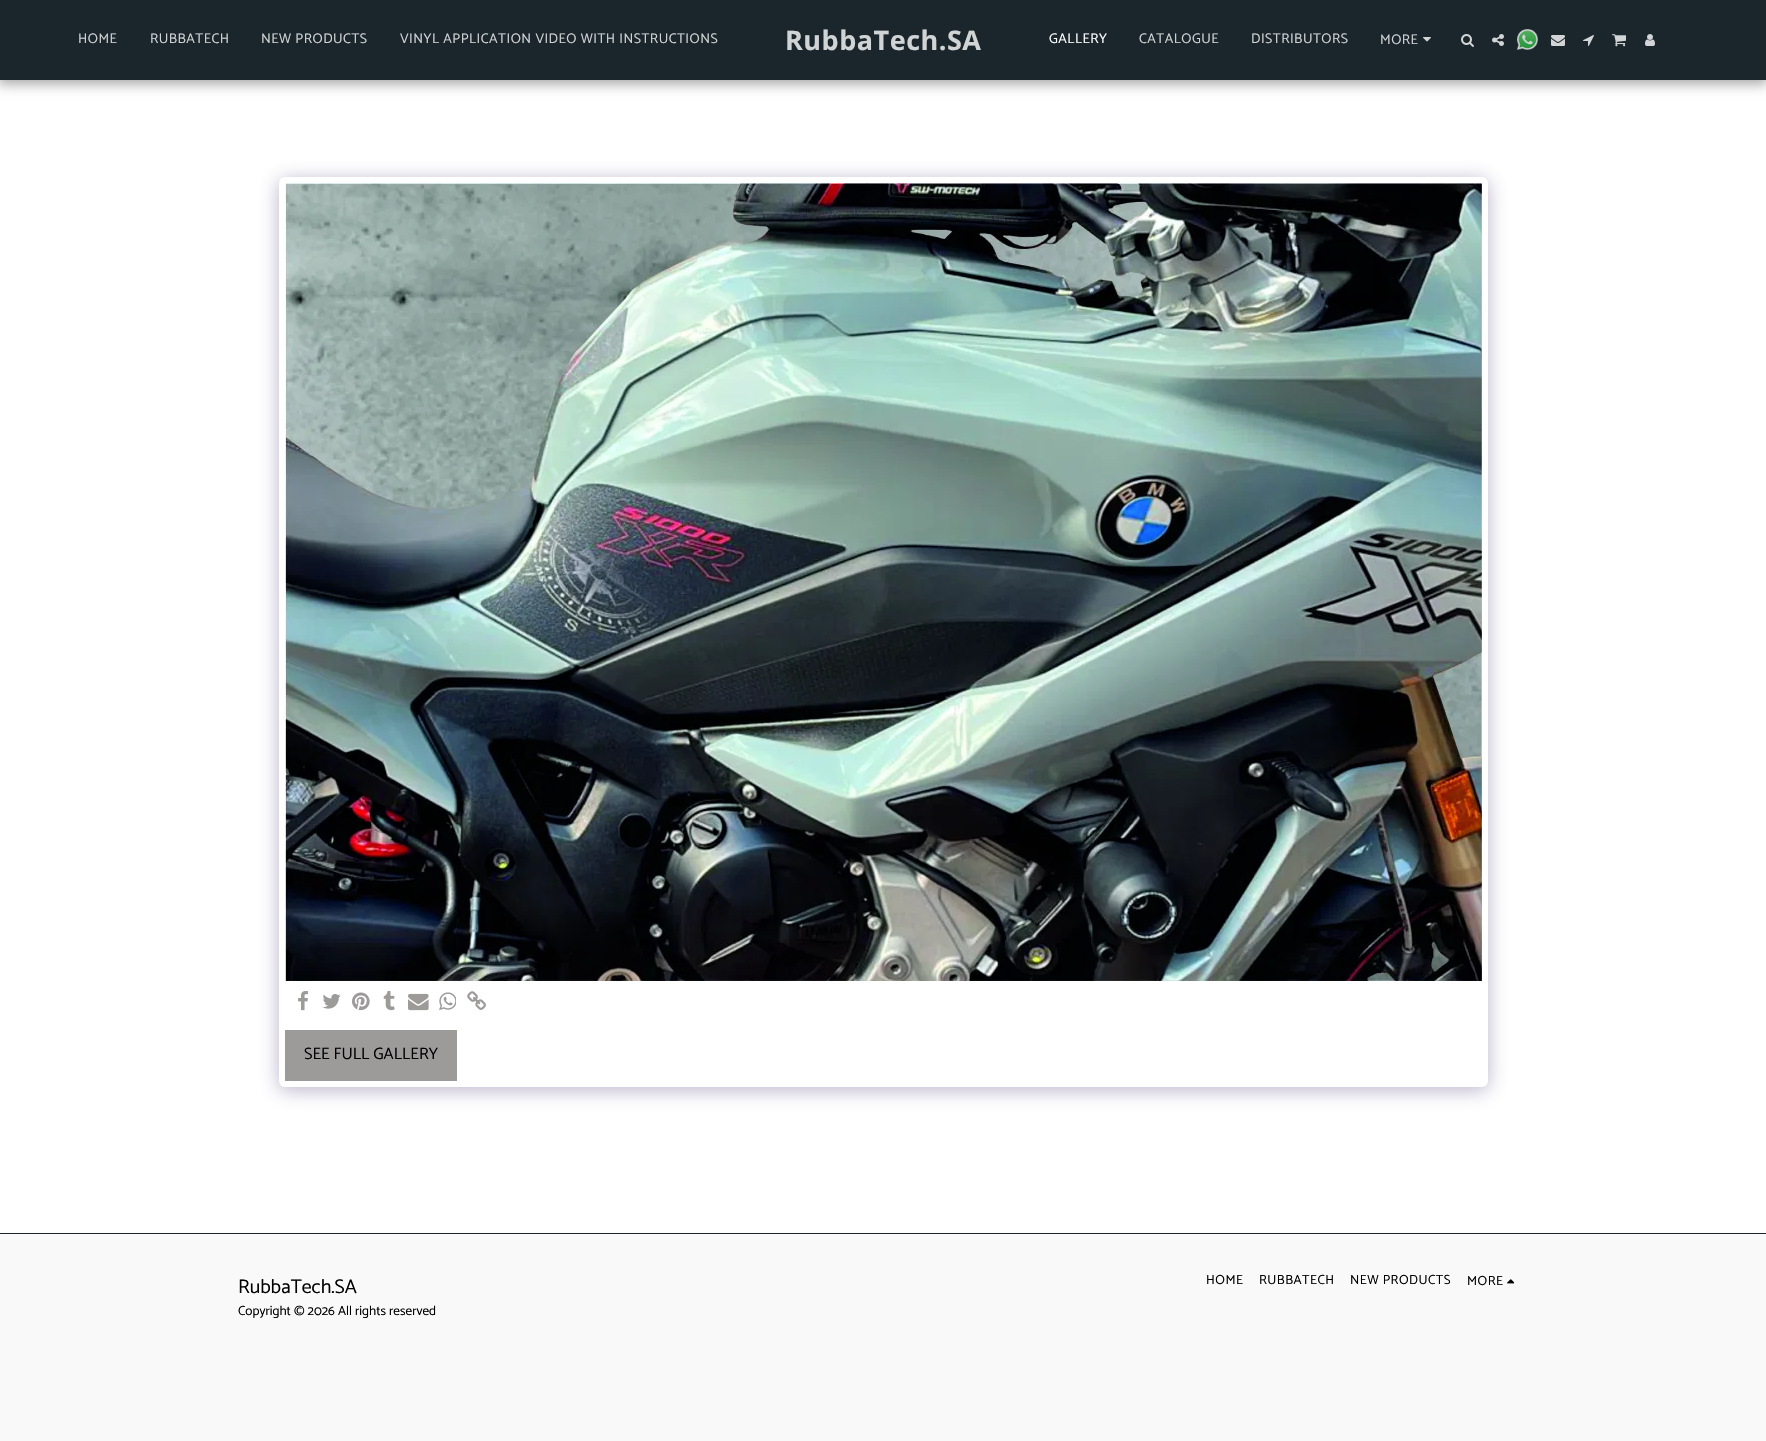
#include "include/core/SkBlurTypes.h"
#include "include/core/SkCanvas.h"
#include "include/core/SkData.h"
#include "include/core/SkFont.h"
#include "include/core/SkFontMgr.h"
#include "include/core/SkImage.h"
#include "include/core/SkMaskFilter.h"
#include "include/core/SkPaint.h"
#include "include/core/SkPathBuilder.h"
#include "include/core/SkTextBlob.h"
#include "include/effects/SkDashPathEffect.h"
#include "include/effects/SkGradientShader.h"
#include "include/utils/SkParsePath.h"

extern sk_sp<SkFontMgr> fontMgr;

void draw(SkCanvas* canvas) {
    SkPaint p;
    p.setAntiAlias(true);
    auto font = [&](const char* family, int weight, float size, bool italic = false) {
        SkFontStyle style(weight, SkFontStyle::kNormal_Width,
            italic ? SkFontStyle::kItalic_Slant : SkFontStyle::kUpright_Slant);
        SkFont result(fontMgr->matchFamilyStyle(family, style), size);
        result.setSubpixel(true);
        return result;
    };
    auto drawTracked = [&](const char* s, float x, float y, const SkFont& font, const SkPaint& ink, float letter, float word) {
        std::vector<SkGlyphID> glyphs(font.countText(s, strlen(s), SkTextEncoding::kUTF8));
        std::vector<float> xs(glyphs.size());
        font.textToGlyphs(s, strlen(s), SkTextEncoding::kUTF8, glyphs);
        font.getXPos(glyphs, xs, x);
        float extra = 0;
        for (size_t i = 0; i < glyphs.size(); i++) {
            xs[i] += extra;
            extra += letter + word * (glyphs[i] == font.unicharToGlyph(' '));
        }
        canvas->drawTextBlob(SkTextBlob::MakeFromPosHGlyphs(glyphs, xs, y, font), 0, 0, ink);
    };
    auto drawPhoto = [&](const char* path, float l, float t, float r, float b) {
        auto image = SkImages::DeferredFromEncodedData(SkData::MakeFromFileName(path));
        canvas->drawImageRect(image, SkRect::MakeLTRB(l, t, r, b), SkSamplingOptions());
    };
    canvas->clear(0xFFF9F9F9);
    p.setColor(0xFFFFFFFF);
    canvas->drawRect(SkRect::MakeLTRB(0, 80, 1766, 1233), p);
    p.setColor(0x59000000);
    p.setMaskFilter(SkMaskFilter::MakeBlur(kNormal_SkBlurStyle, 6));
    canvas->drawRect(SkRect::MakeLTRB(-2, 0, 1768, 84), p);
    p.setMaskFilter(nullptr);
    p.setColor(0xFF1B262C);
    canvas->drawRect(SkRect::MakeLTRB(0, 0, 1766, 80), p);
    auto font1 = font("Catamaran", 400, 14);
    p.setColor(0xFFD1D4D5);
    {
        const struct { const char* s; float x, y; } items[] = {
            {"HOME", 78, 43},
            {"RUBBATECH", 150, 43},
            {"NEW PRODUCTS", 261, 43},
            {"VINYL APPLICATION VIDEO WITH INSTRUCTIONS", 400, 43},
        };
        for (auto [s, x, y] : items) {
            drawTracked(s, x, y, font1, p, 0.5f, 0);
        }
    }
    auto font2 = font("Open Sans", 700, 27);
    drawTracked("RubbaTech.SA", 785, 50, font2, p, 0.5f, 0);
    p.setColor(0xFFFFFFFF);
    drawTracked("GALLERY", 1049, 43, font1, p, 0.5f, 0);
    p.setColor(0xFFD1D4D5);
    {
        const struct { const char* s; float x, y; } items[] = {
            {"CATALOGUE", 1139, 43},
            {"DISTRIBUTORS", 1251, 43},
            {"MORE", 1380, 44},
        };
        for (auto [s, x, y] : items) {
            drawTracked(s, x, y, font1, p, 0.5f, 0);
        }
    }
    drawPhoto("media/1.png", 1423, 37, 1431, 42);
    drawPhoto("media/2.png", 1461, 34, 1474, 47);
    drawPhoto("media/3.png", 1492, 34, 1504, 46);
    drawPhoto("media/4.png", 1517, 29, 1538, 50);
    drawPhoto("media/5.png", 1551, 35, 1565, 46);
    drawPhoto("media/6.png", 1583, 35, 1594, 46);
    drawPhoto("media/7.png", 1612, 34, 1626, 47);
    drawPhoto("media/8.png", 1645, 34, 1655, 46);
    p.setColor(0x664D3F7A);
    p.setMaskFilter(SkMaskFilter::MakeBlur(kNormal_SkBlurStyle, 10));
    canvas->drawRoundRect(SkRect::MakeLTRB(279, 180, 1488, 1090), 6, 6, p);
    p.setMaskFilter(nullptr);
    p.setColor(0xFFFFFFFF);
    canvas->drawRoundRect(SkRect::MakeLTRB(279, 177, 1488, 1087), 6, 6, p);
    drawPhoto("media/9.png", 285, 183, 1482, 981);
    drawPhoto("media/10.png", 298, 991, 308, 1011);
    drawPhoto("media/11.png", 322, 994, 341, 1009);
    drawPhoto("media/12.png", 352, 992, 370, 1011);
    drawPhoto("media/13.png", 383, 991, 395, 1011);
    drawPhoto("media/14.png", 408, 993, 429, 1011);
    drawPhoto("media/15.png", 439, 992, 456, 1011);
    drawPhoto("media/16.png", 467, 991, 486, 1010);
    p.setColor(0xFF9D9A9A);
    canvas->drawRect(SkRect::MakeLTRB(285, 1030, 457, 1081), p);
    auto font3 = font("Catamaran", 400, 16.5f);
    p.setColor(0xFF000000);
    canvas->drawString("SEE FULL GALLERY", 304, 1059, font3, p);
    p.setColor(0xFF1B262C);
    canvas->drawRect(SkRect::MakeLTRB(0, 1233, 1766, 1234), p);
    auto font4 = font("Catamaran", 400, 19.75f);
    p.setColor(0xFF000000);
    canvas->drawString("RubbaTech.SA", 238, 1293, font4, p);
    auto font5 = font("Catamaran", 400, 13.25f);
    canvas->drawString("Copyright © 2026 All rights reserved", 238, 1315, font5, p);
    {
        const struct { const char* s; float x, y; } items[] = {
            {"HOME", 1206, 1284},
            {"RUBBATECH", 1259, 1284},
            {"NEW PRODUCTS", 1350, 1284},
            {"MORE", 1467, 1285},
        };
        for (auto [s, x, y] : items) {
            drawTracked(s, x, y, font5, p, 0.5f, 0);
        }
    }
    drawPhoto("media/17.png", 1507, 1279, 1514, 1284);
}
